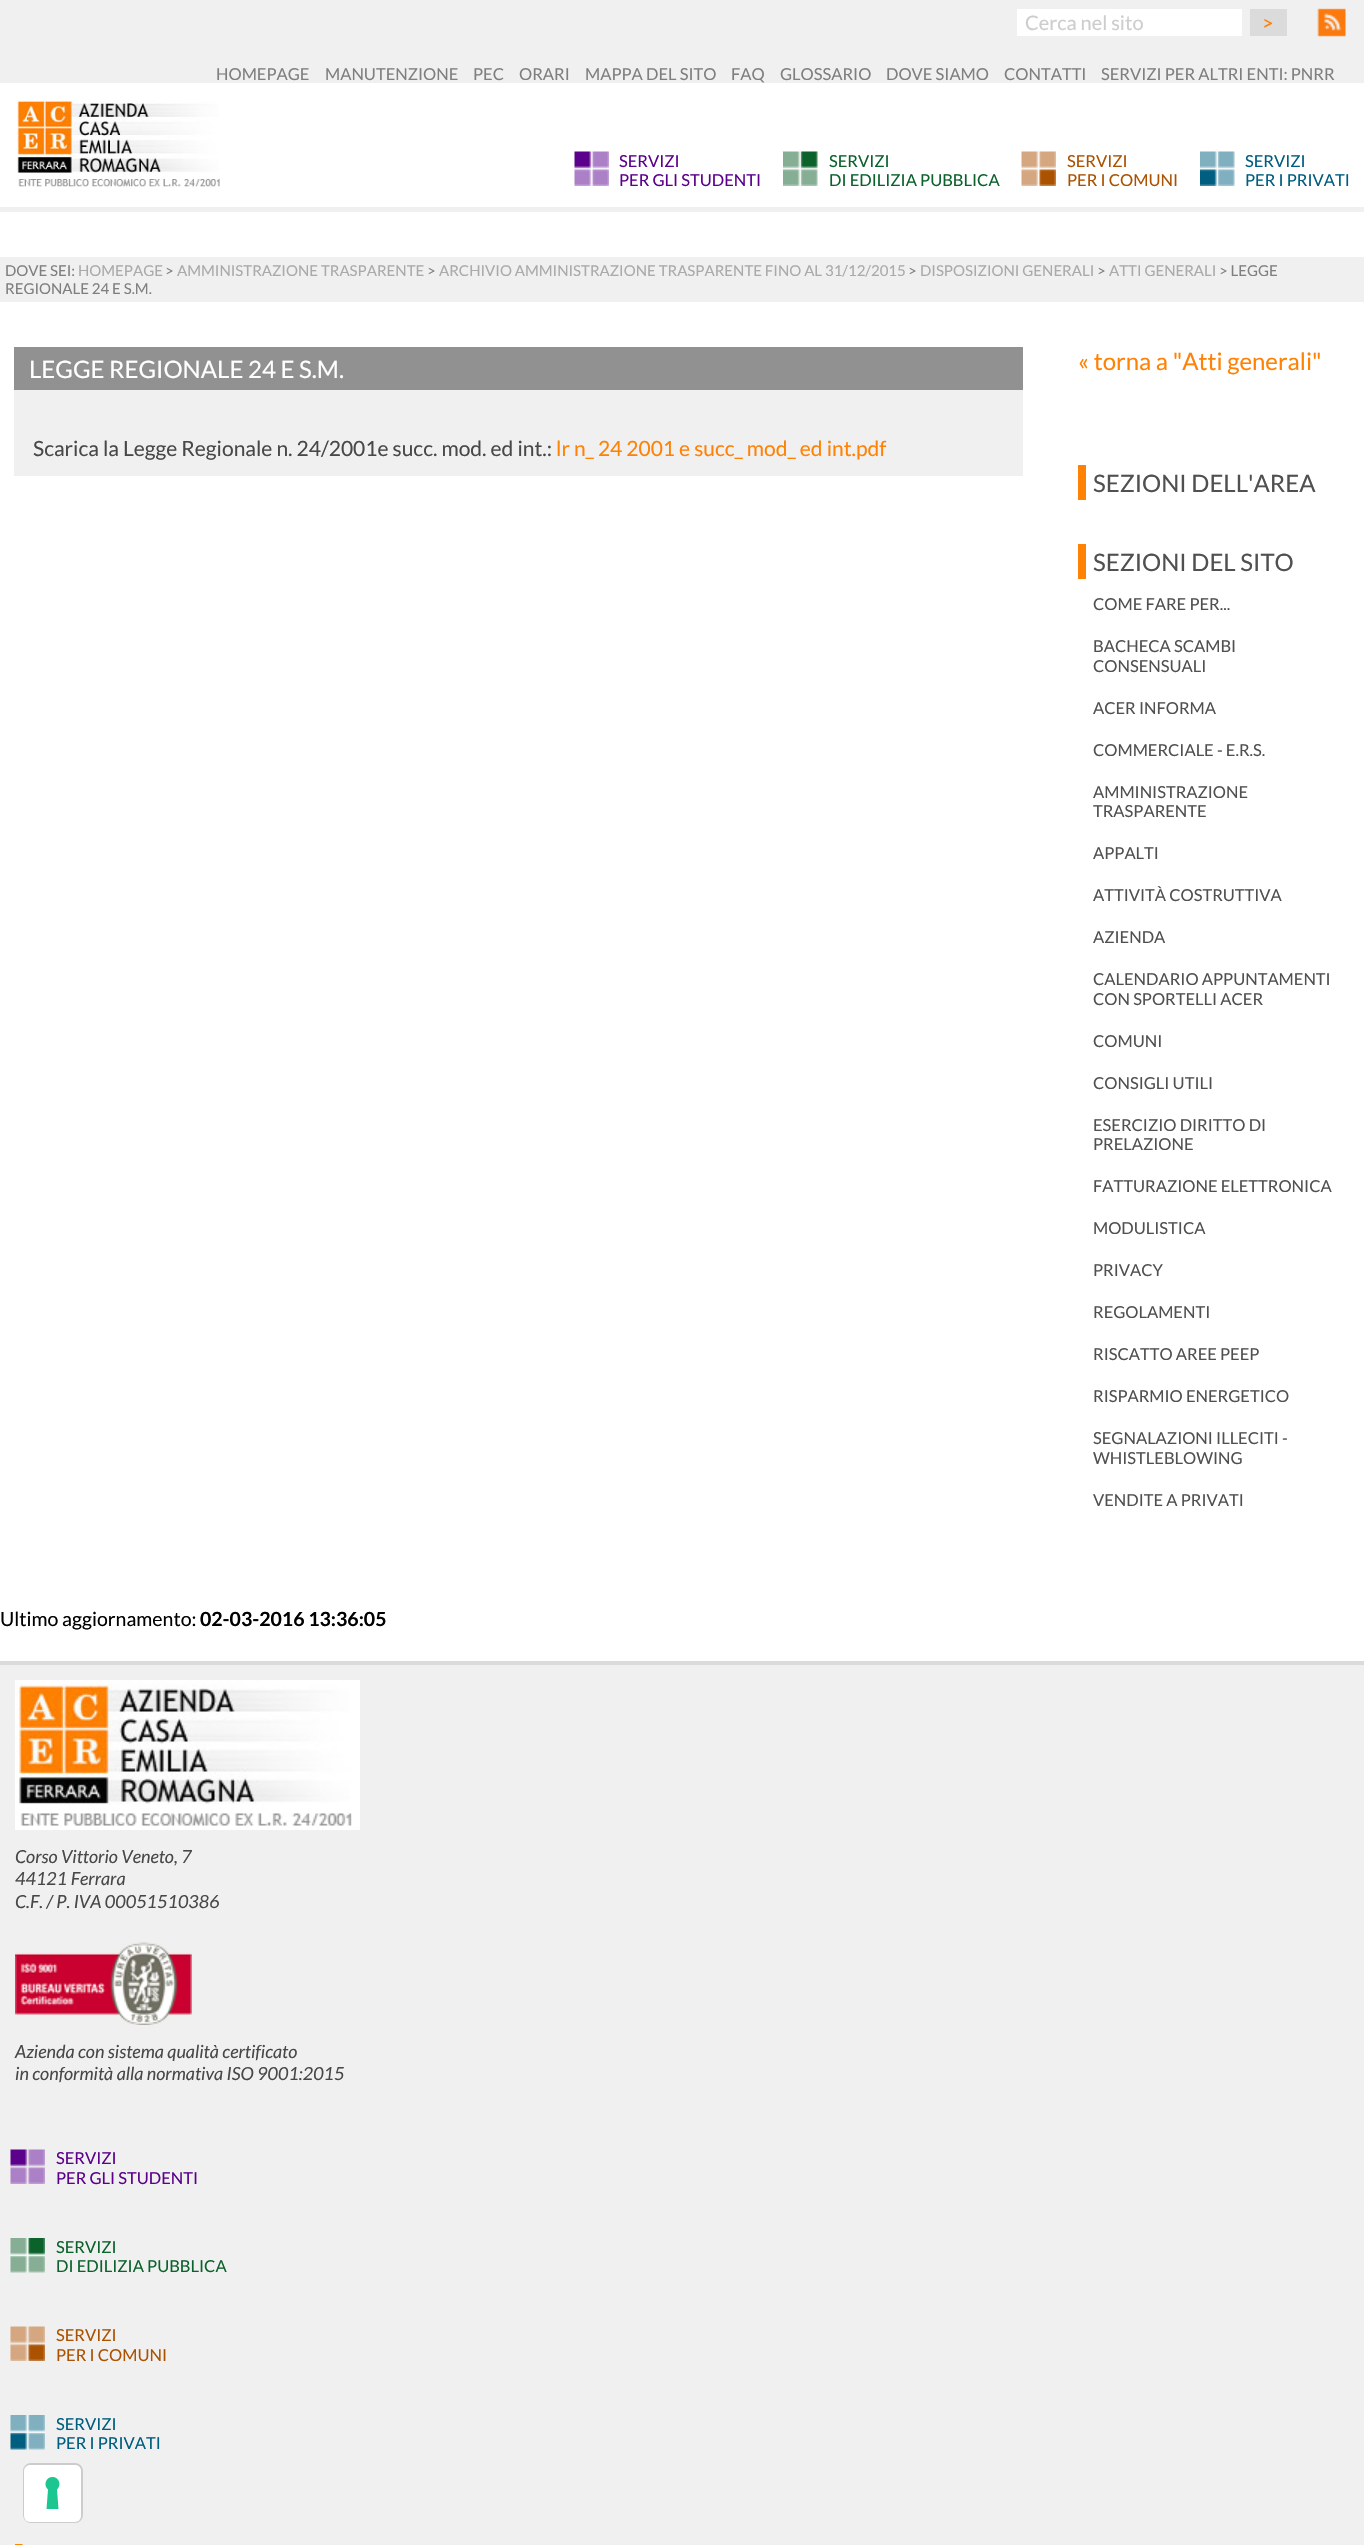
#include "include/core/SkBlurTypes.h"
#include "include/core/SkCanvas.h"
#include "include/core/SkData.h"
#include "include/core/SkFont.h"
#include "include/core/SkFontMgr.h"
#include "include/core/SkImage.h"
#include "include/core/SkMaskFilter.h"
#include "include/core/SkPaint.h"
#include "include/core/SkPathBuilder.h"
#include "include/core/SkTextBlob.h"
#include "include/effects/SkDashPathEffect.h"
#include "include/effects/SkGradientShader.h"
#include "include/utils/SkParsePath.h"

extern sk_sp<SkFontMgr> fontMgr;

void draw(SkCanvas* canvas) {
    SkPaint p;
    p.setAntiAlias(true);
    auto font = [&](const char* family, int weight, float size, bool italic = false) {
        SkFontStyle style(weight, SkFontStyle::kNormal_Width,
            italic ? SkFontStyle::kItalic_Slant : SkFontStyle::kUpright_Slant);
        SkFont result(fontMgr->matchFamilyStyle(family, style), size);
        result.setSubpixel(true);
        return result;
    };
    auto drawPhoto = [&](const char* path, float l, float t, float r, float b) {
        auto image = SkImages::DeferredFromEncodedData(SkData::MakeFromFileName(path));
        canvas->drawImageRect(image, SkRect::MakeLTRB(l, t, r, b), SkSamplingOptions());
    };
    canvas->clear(0xFFFFFFFF);
    {
        const struct { float l, t, r, b; SkColor color; } items[] = {
            {0, 207, 1364, 212, 0xFFF0F0F0},
            {0, 0, 1364, 83, 0xFFF0F0F0},
            {1017, 9, 1242, 36, 0xFFFFFFFF},
        };
        for (auto [l, t, r, b, color] : items) {
            p.setColor(color);
            canvas->drawRect(SkRect::MakeLTRB(l, t, r, b), p);
        }
    }
    auto font1 = font("Lato", 400, 20);
    p.setColor(0xFFCDCDCD);
    canvas->drawString("Cerca nel sito", 1025, 30, font1, p);
    p.setColor(0xFFDBDBDB);
    canvas->drawRect(SkRect::MakeLTRB(1250, 9, 1287, 36), p);
    p.setColor(0xFFFF8205);
    canvas->drawString(">", 1262, 30, font1, p);
    drawPhoto("media/1.png", 1317, 8, 1346, 37);
    auto font2 = font("Lato", 400, 16.5f);
    p.setColor(0xFF7F7F7F);
    {
        const struct { const char* s; float x, y; } items[] = {
            {"HOMEPAGE", 216, 80},
            {"MANUTENZIONE", 325, 80},
            {"PEC", 473, 80},
            {"ORARI", 519, 80},
            {"MAPPA DEL SITO", 585, 80},
            {"FAQ", 731, 80},
            {"GLOSSARIO", 780, 80},
            {"DOVE SIAMO", 886, 80},
            {"CONTATTI", 1004, 80},
            {"SERVIZI PER ALTRI ENTI: PNRR", 1101, 80},
        };
        for (auto [s, x, y] : items) {
            canvas->drawString(s, x, y, font2, p);
        }
    }
    drawPhoto("media/2.png", 17, 100, 220, 187);
    drawPhoto("media/3.png", 574, 151, 609, 186);
    p.setColor(0xFF5C018C);
    canvas->drawString("SERVIZI", 619, 167, font2, p);
    canvas->drawString("PER GLI STUDENTI", 619, 186, font2, p);
    drawPhoto("media/4.png", 783, 151, 818, 186);
    p.setColor(0xFF0B622B);
    canvas->drawString("SERVIZI", 829, 167, font2, p);
    canvas->drawString("DI EDILIZIA PUBBLICA", 829, 186, font2, p);
    drawPhoto("media/5.png", 1021, 151, 1056, 186);
    p.setColor(0xFFAB5201);
    canvas->drawString("SERVIZI", 1067, 167, font2, p);
    canvas->drawString("PER I COMUNI", 1067, 186, font2, p);
    drawPhoto("media/6.png", 1200, 151, 1235, 186);
    p.setColor(0xFF005E80);
    canvas->drawString("SERVIZI", 1245, 167, font2, p);
    canvas->drawString("PER I PRIVATI", 1245, 186, font2, p);
    p.setColor(0xFFF0F0F0);
    canvas->drawRect(SkRect::MakeLTRB(0, 257, 1364, 302), p);
    auto font3 = font("Lato", 400, 15);
    p.setColor(0xFF7F7F7F);
    canvas->drawString("DOVE SEI:", 5, 276, font3, p);
    p.setColor(0xFFAAAAAA);
    canvas->drawString("HOMEPAGE", 78, 276, font3, p);
    p.setColor(0xFF7F7F7F);
    canvas->drawString(">", 165, 276, font3, p);
    p.setColor(0xFFAAAAAA);
    canvas->drawString("AMMINISTRAZIONE TRASPARENTE", 177, 276, font3, p);
    p.setColor(0xFF7F7F7F);
    canvas->drawString(">", 427, 276, font3, p);
    p.setColor(0xFFAAAAAA);
    canvas->drawString("ARCHIVIO AMMINISTRAZIONE TRASPARENTE FINO AL 31/12/2015", 439, 276, font3, p);
    p.setColor(0xFF7F7F7F);
    canvas->drawString(">", 908, 276, font3, p);
    p.setColor(0xFFAAAAAA);
    canvas->drawString("DISPOSIZIONI GENERALI", 920, 276, font3, p);
    p.setColor(0xFF7F7F7F);
    canvas->drawString(">", 1097, 276, font3, p);
    p.setColor(0xFFAAAAAA);
    canvas->drawString("ATTI GENERALI", 1109, 276, font3, p);
    p.setColor(0xFF7F7F7F);
    canvas->drawString("> LEGGE", 1219, 276, font3, p);
    canvas->drawString("REGIONALE 24 E S.M.", 5, 294, font3, p);
    p.setColor(0xFFF0F0F0);
    canvas->drawRect(SkRect::MakeLTRB(14, 390, 1023, 476), p);
    p.setColor(0xFF919191);
    canvas->drawRect(SkRect::MakeLTRB(14, 347, 1023, 390), p);
    auto font4 = font("Lato", 400, 24);
    p.setColor(0xFFFFFFFF);
    canvas->drawString("LEGGE REGIONALE 24 E S.M.", 29, 378, font4, p);
    auto font5 = font("Lato", 400, 21);
    p.setColor(0xFF484848);
    canvas->drawString("Scarica la Legge Regionale n. 24/2001e succ. mod. ed int.:", 33, 456, font5, p);
    p.setColor(0xFFFF8205);
    canvas->drawString("lr n_ 24 2001 e succ_ mod_ ed int.pdf", 556, 456, font5, p);
    canvas->drawString("« torna a \"Atti generali\"", 1078, 370, font4, p);
    p.setColor(0xFFFF8204);
    canvas->drawRect(SkRect::MakeLTRB(1078, 465, 1086, 500), p);
    p.setColor(0xFF505050);
    canvas->drawString("SEZIONI DELL'AREA", 1093, 492, font4, p);
    p.setColor(0xFFFF8204);
    canvas->drawRect(SkRect::MakeLTRB(1078, 544, 1086, 579), p);
    p.setColor(0xFF505050);
    canvas->drawString("SEZIONI DEL SITO", 1093, 571, font4, p);
    {
        const struct { const char* s; float x, y; } items[] = {
            {"COME FARE PER...", 1093, 610},
            {"BACHECA SCAMBI", 1093, 652},
            {"CONSENSUALI", 1093, 672},
            {"ACER INFORMA", 1093, 714},
            {"COMMERCIALE - E.R.S.", 1093, 756},
            {"AMMINISTRAZIONE", 1093, 798},
            {"TRASPARENTE", 1093, 817},
            {"APPALTI", 1093, 859},
            {"ATTIVITÀ COSTRUTTIVA", 1093, 901},
            {"AZIENDA", 1093, 943},
            {"CALENDARIO APPUNTAMENTI", 1093, 985},
            {"CON SPORTELLI ACER", 1093, 1005},
            {"COMUNI", 1093, 1047},
            {"CONSIGLI UTILI", 1093, 1089},
            {"ESERCIZIO DIRITTO DI", 1093, 1131},
            {"PRELAZIONE", 1093, 1150},
            {"FATTURAZIONE ELETTRONICA", 1093, 1192},
            {"MODULISTICA", 1093, 1234},
            {"PRIVACY", 1093, 1276},
            {"REGOLAMENTI", 1093, 1318},
            {"RISCATTO AREE PEEP", 1093, 1360},
            {"RISPARMIO ENERGETICO", 1093, 1402},
            {"SEGNALAZIONI ILLECITI -", 1093, 1444},
            {"WHISTLEBLOWING", 1093, 1464},
            {"VENDITE A PRIVATI", 1093, 1506},
        };
        for (auto [s, x, y] : items) {
            canvas->drawString(s, x, y, font2, p);
        }
    }
    auto font6 = font("Lato", 400, 19.5f);
    p.setColor(0xFF000000);
    canvas->drawString("Ultimo aggiornamento:", 0, 1626, font6, p);
    auto font7 = font("Lato", 700, 19.5f);
    canvas->drawString("02-03-2016 13:36:05", 200, 1626, font7, p);
    p.setColor(0xFFDBDBDB);
    canvas->drawRect(SkRect::MakeLTRB(0, 1661, 1364, 1665), p);
    p.setColor(0xFFF0F0F0);
    canvas->drawRect(SkRect::MakeLTRB(0, 1665, 1364, 2545), p);
    drawPhoto("media/7.png", 15, 1680, 360, 1830);
    auto font8 = font("Lato", 400, 18, true);
    p.setColor(0xFF484848);
    {
        const struct { const char* s; float x, y; } items[] = {
            {"Corso Vittorio Veneto, 7", 15, 1863},
            {"44121 Ferrara", 15, 1885},
            {"C.F. / P. IVA 00051510386", 15, 1908},
        };
        for (auto [s, x, y] : items) {
            canvas->drawString(s, x, y, font8, p);
        }
    }
    drawPhoto("media/8.png", 15, 1942, 192, 2025);
    canvas->drawString("Azienda con sistema qualità certificato", 15, 2058, font8, p);
    canvas->drawString("in conformità alla normativa ISO 9001:2015", 15, 2080, font8, p);
    drawPhoto("media/9.png", 10, 2149, 45, 2184);
    p.setColor(0xFF5C018C);
    canvas->drawString("SERVIZI", 56, 2164, font2, p);
    canvas->drawString("PER GLI STUDENTI", 56, 2184, font2, p);
    drawPhoto("media/10.png", 10, 2238, 45, 2273);
    p.setColor(0xFF0B622B);
    canvas->drawString("SERVIZI", 56, 2253, font2, p);
    canvas->drawString("DI EDILIZIA PUBBLICA", 56, 2272, font2, p);
    drawPhoto("media/11.png", 10, 2326, 45, 2361);
    p.setColor(0xFFAB5201);
    canvas->drawString("SERVIZI", 56, 2341, font2, p);
    canvas->drawString("PER I COMUNI", 56, 2361, font2, p);
    drawPhoto("media/12.png", 10, 2415, 45, 2450);
    p.setColor(0xFF005E80);
    canvas->drawString("SERVIZI", 56, 2430, font2, p);
    canvas->drawString("PER I PRIVATI", 56, 2449, font2, p);
    drawPhoto("media/13.png", 15, 2544, 23, 2545);
    p.setStyle(SkPaint::kStroke_Style);
    p.setStrokeWidth(2);
    p.setColor(0xFFCCCCCC);
    canvas->drawRoundRect(SkRect::MakeLTRB(24, 2464, 82, 2522), 7, 7, p);
    p.setStyle(SkPaint::kFill_Style);
    p.setColor(0xFFFFFFFF);
    canvas->drawRoundRect(SkRect::MakeLTRB(24, 2465, 81, 2522), 6, 6, p);
    p.setColor(0xFF1CC691);
    canvas->drawPath(SkPathBuilder(SkPathFillType::kEvenOdd).moveTo(52.5f, 2477).cubicTo(59, 2477, 62, 2485, 57, 2489.5f).lineTo(58.5f, 2509).lineTo(46.5f, 2509).lineTo(48, 2489.5f).cubicTo(43, 2485, 46, 2477, 52.5f, 2477).close().detach(), p);
}
